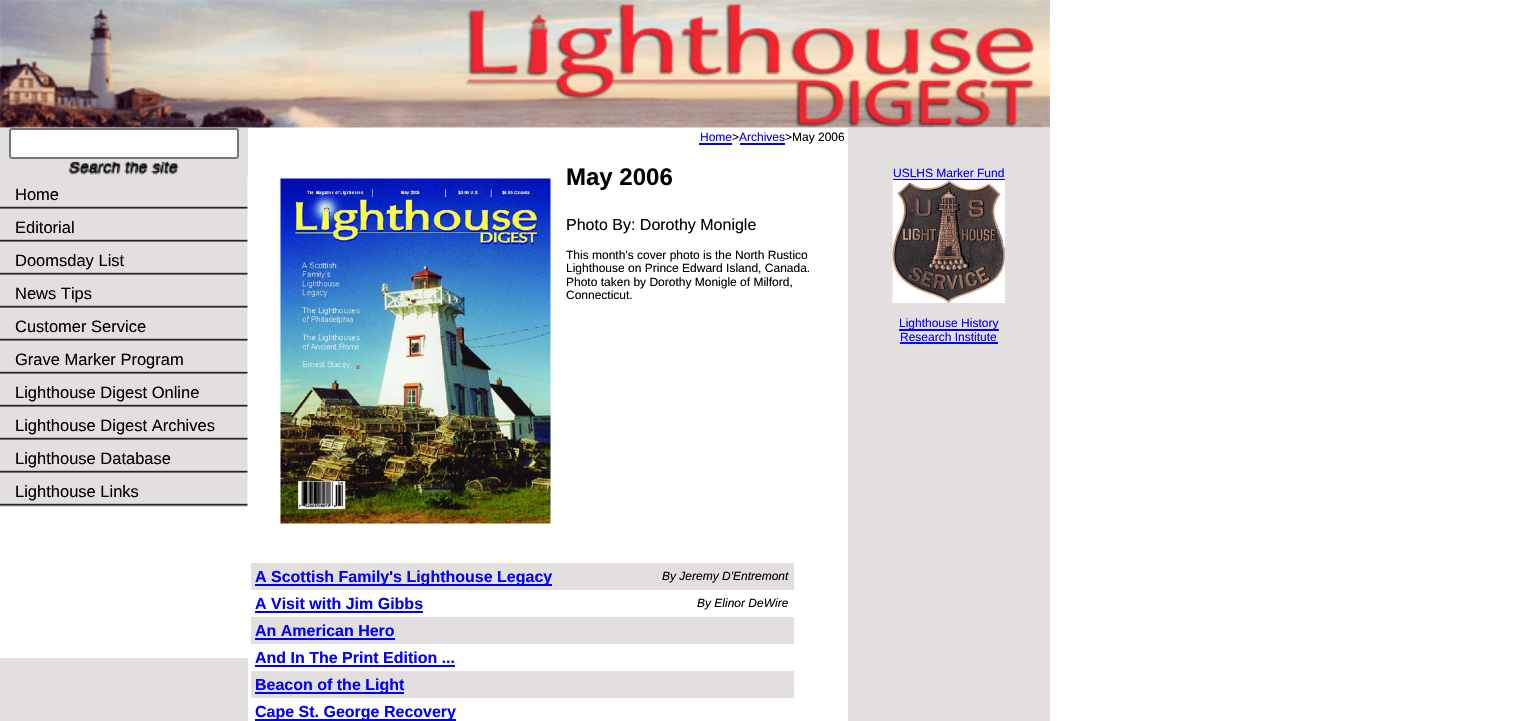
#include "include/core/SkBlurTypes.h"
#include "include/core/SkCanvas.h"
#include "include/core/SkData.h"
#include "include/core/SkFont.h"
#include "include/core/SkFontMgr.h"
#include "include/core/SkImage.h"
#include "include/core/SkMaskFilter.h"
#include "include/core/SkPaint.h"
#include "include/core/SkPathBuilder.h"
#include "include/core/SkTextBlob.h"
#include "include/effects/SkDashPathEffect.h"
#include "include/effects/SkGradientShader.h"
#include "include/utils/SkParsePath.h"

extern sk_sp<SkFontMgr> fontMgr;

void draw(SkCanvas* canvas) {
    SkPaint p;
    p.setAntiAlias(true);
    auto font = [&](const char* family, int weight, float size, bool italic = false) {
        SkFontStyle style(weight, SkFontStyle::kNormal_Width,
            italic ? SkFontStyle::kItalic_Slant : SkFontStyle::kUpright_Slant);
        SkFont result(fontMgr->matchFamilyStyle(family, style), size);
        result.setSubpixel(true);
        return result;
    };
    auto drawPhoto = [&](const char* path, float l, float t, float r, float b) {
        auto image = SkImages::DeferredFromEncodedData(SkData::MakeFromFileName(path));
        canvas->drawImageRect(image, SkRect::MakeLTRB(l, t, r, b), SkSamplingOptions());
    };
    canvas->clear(0xFFFFFFFF);
    drawPhoto("media/1.png", 0, 0, 1050, 128);
    p.setColor(0xFFE4DFDF);
    canvas->drawRect(SkRect::MakeLTRB(0, 128, 248, 177), p);
    p.setColor(0xFFFFFFFF);
    canvas->drawRoundRect(SkRect::MakeLTRB(10, 129, 238, 158), 2, 2, p);
    p.setStyle(SkPaint::kStroke_Style);
    p.setStrokeWidth(2);
    p.setColor(0xFF767676);
    canvas->drawRoundRect(SkRect::MakeLTRB(10, 129, 238, 158), 2, 2, p);
    drawPhoto("media/2.png", 68, 161, 179, 175);
    drawPhoto("media/3.png", 0, 177, 248, 210);
    auto font1 = font("Liberation Sans", 400, 16.5f);
    p.setStyle(SkPaint::kFill_Style);
    p.setColor(0xFF000000);
    canvas->drawString("Home", 15, 200, font1, p);
    drawPhoto("media/3.png", 0, 210, 248, 243);
    canvas->drawString("Editorial", 15, 233, font1, p);
    drawPhoto("media/3.png", 0, 243, 248, 276);
    canvas->drawString("Doomsday List", 15, 266, font1, p);
    drawPhoto("media/3.png", 0, 276, 248, 309);
    canvas->drawString("News Tips", 15, 299, font1, p);
    drawPhoto("media/3.png", 0, 309, 248, 342);
    canvas->drawString("Customer Service", 15, 332, font1, p);
    drawPhoto("media/3.png", 0, 342, 248, 375);
    canvas->drawString("Grave Marker Program", 15, 365, font1, p);
    drawPhoto("media/3.png", 0, 375, 248, 408);
    canvas->drawString("Lighthouse Digest Online", 15, 398, font1, p);
    drawPhoto("media/3.png", 0, 408, 248, 441);
    canvas->drawString("Lighthouse Digest Archives", 15, 431, font1, p);
    drawPhoto("media/3.png", 0, 441, 248, 474);
    canvas->drawString("Lighthouse Database", 15, 464, font1, p);
    drawPhoto("media/3.png", 0, 474, 248, 507);
    canvas->drawString("Lighthouse Links", 15, 497, font1, p);
    p.setColor(0xFFE4DFDF);
    canvas->drawRect(SkRect::MakeLTRB(0, 658, 248, 721), p);
    auto font2 = font("Liberation Sans", 400, 12);
    p.setColor(0xFF0000FF);
    canvas->drawString("Home", 700, 141, font2, p);
    canvas->drawRect(SkRect::MakeLTRB(699, 143, 732, 145), p);
    p.setColor(0xFF000000);
    canvas->drawString(">", 732, 141, font2, p);
    p.setColor(0xFF0000FF);
    canvas->drawString("Archives", 739, 141, font2, p);
    canvas->drawRect(SkRect::MakeLTRB(740, 143, 785, 145), p);
    p.setColor(0xFF000000);
    canvas->drawString(">May 2006", 785, 141, font2, p);
    drawPhoto("media/4.png", 280, 178, 551, 524);
    auto font3 = font("Liberation Sans", 700, 24);
    canvas->drawString("May 2006", 566, 185, font3, p);
    auto font4 = font("Liberation Sans", 400, 16);
    canvas->drawString("Photo By: Dorothy Monigle", 566, 230, font4, p);
    {
        const struct { const char* s; float x, y; } items[] = {
            {"This month's cover photo is the North Rustico", 566, 259},
            {"Lighthouse on Prince Edward Island, Canada.", 566, 272},
            {"Photo taken by Dorothy Monigle of Milford,", 566, 286},
            {"Connecticut.", 566, 299},
        };
        for (auto [s, x, y] : items) {
            canvas->drawString(s, x, y, font2, p);
        }
    }
    p.setColor(0xFFE4DFDF);
    canvas->drawRect(SkRect::MakeLTRB(251, 563, 794, 590), p);
    p.setColor(0xFF0000FF);
    canvas->drawRect(SkRect::MakeLTRB(255, 584, 552, 586), p);
    auto font5 = font("Liberation Sans", 700, 16);
    canvas->drawString("A Scottish Family's Lighthouse Legacy", 255, 582, font5, p);
    auto font6 = font("Liberation Sans", 400, 12, true);
    p.setColor(0xFF000000);
    canvas->drawString("By Jeremy D'Entremont", 662, 580, font6, p);
    p.setColor(0xFF0000FF);
    canvas->drawString("A Visit with Jim Gibbs", 255, 609, font5, p);
    canvas->drawRect(SkRect::MakeLTRB(255, 611, 423, 613), p);
    p.setColor(0xFF000000);
    canvas->drawString("By Elinor DeWire", 697, 607, font6, p);
    p.setColor(0xFFE4DFDF);
    canvas->drawRect(SkRect::MakeLTRB(251, 617, 794, 644), p);
    p.setColor(0xFF0000FF);
    canvas->drawString("An American Hero", 255, 636, font5, p);
    canvas->drawRect(SkRect::MakeLTRB(255, 638, 395, 640), p);
    canvas->drawString("And In The Print Edition ...", 255, 663, font5, p);
    {
        const struct { float l, t, r, b; SkColor color; } items[] = {
            {255, 665, 455, 667, 0xFF0000FF},
            {251, 671, 794, 698, 0xFFE4DFDF},
            {255, 692, 404, 694, 0xFF0000FF},
        };
        for (auto [l, t, r, b, color] : items) {
            p.setColor(color);
            canvas->drawRect(SkRect::MakeLTRB(l, t, r, b), p);
        }
    }
    canvas->drawString("Beacon of the Light", 255, 690, font5, p);
    canvas->drawRect(SkRect::MakeLTRB(255, 719, 456, 721), p);
    canvas->drawString("Cape St. George Recovery", 255, 717, font5, p);
    p.setColor(0xFFE4DFDF);
    canvas->drawRect(SkRect::MakeLTRB(848, 128, 1050, 721), p);
    p.setColor(0xFF0000FF);
    canvas->drawString("USLHS Marker Fund", 893, 177, font2, p);
    canvas->drawRect(SkRect::MakeLTRB(893, 179, 1005, 180), p);
    drawPhoto("media/5.png", 892, 180, 1005, 303);
    canvas->drawRect(SkRect::MakeLTRB(899, 329, 999, 331), p);
    canvas->drawString("Lighthouse History", 899, 327, font2, p);
    canvas->drawString("Research Institute", 900, 341, font2, p);
    canvas->drawRect(SkRect::MakeLTRB(900, 342, 998, 344), p);
}
